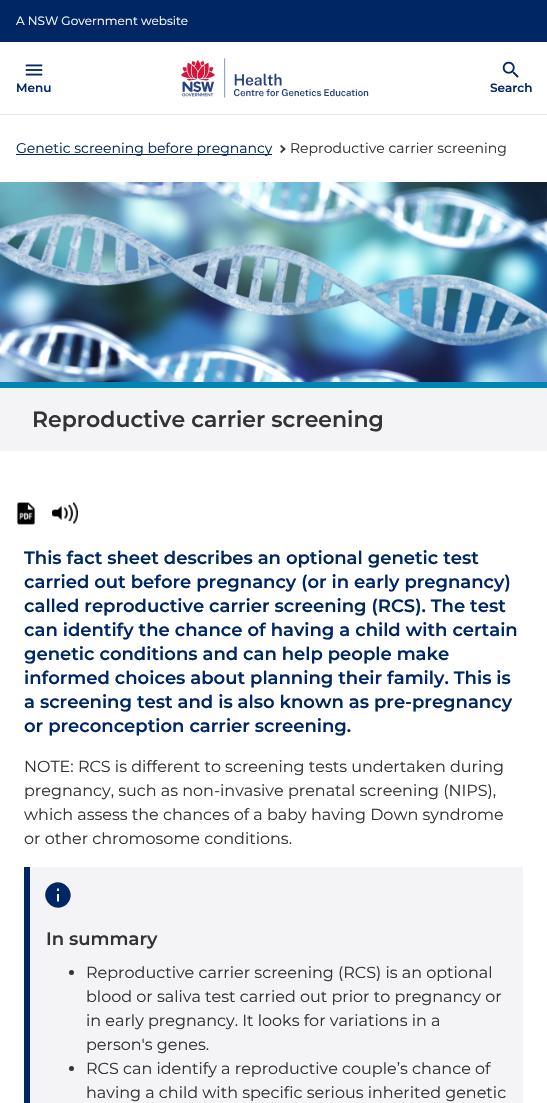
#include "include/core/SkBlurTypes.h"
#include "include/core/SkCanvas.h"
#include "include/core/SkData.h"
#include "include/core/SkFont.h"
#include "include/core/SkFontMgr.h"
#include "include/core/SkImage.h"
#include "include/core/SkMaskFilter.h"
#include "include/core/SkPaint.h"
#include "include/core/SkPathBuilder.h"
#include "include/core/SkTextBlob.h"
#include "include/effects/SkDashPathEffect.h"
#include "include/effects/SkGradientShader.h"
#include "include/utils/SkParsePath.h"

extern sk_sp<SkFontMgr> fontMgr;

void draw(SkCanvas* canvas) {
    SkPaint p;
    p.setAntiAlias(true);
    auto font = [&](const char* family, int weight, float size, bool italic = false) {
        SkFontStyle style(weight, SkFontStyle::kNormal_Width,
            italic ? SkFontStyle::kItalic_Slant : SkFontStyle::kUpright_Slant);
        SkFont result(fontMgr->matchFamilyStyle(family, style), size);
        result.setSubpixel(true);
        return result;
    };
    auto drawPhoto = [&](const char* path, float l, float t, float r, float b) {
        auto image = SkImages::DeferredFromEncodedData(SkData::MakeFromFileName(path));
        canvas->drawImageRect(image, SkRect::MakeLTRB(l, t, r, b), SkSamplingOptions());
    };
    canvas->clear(0xFFFFFFFF);
    p.setColor(0xFF002664);
    canvas->drawRect(SkRect::MakeLTRB(0, 0, 547, 42), p);
    auto font1 = font("Montserrat", 400, 12);
    p.setColor(0xFFFFFFFF);
    canvas->drawString("A NSW Government website", 16, 25, font1, p);
    p.setColor(0xFFE4E4E6);
    canvas->drawRect(SkRect::MakeLTRB(0, 114, 547, 115), p);
    drawPhoto("media/1.png", 25, 64, 43, 76);
    auto font2 = font("Montserrat", 600, 12);
    p.setColor(0xFF002664);
    canvas->drawString("Menu", 16, 92, font2, p);
    drawPhoto("media/2.png", 181, 58, 369, 98);
    drawPhoto("media/3.png", 502, 61, 519, 78);
    canvas->drawString("Search", 490, 92, font2, p);
    canvas->drawRect(SkRect::MakeLTRB(16, 154, 272, 155), p);
    auto font3 = font("Montserrat", 400, 14);
    canvas->drawString("Genetic screening before pregnancy", 16, 153, font3, p);
    p.setColor(0xFF333333);
    canvas->drawPath(SkPathBuilder().moveTo(280, 146).lineTo(281.5f, 145).lineTo(285.5f, 149).lineTo(284.5f, 150.5f).close().detach(), p);
    canvas->drawPath(SkPathBuilder().moveTo(280, 152).lineTo(284.5f, 147.5f).lineTo(285.5f, 149).lineTo(281.5f, 153).close().detach(), p);
    canvas->drawString("Reproductive carrier screening", 290, 153, font3, p);
    drawPhoto("media/4.png", 0, 182, 547, 382);
    p.setColor(0xFFF4F4F7);
    canvas->drawRect(SkRect::MakeLTRB(0, 388, 547, 451), p);
    p.setColor(0xFF0085B3);
    canvas->drawRect(SkRect::MakeLTRB(0, 382, 547, 388), p);
    auto font4 = font("Montserrat", 600, 22);
    p.setColor(0xFF333333);
    canvas->drawString("Reproductive carrier screening", 32, 427, font4, p);
    drawPhoto("media/5.png", 16, 502, 36, 525);
    drawPhoto("media/6.png", 52, 501, 78, 525);
    auto font5 = font("Montserrat", 600, 18);
    p.setColor(0xFF002664);
    {
        const struct { const char* s; float x, y; } items[] = {
            {"This fact sheet describes an optional genetic test", 24, 564},
            {"carried out before pregnancy (or in early pregnancy)", 24, 588},
            {"called reproductive carrier screening (RCS). The test", 24, 612},
            {"can identify the chance of having a child with certain", 24, 636},
            {"genetic conditions and can help people make", 24, 660},
            {"informed choices about planning their family. This is", 24, 684},
            {"a screening test and is also known as pre-pregnancy", 24, 708},
            {"or preconception carrier screening.", 24, 732},
        };
        for (auto [s, x, y] : items) {
            canvas->drawString(s, x, y, font5, p);
        }
    }
    auto font6 = font("Montserrat", 400, 16);
    p.setColor(0xFF333333);
    {
        const struct { const char* s; float x, y; } items[] = {
            {"NOTE: RCS is different to screening tests undertaken during", 24, 772},
            {"pregnancy, such as non-invasive prenatal screening (NIPS),", 24, 796},
            {"which assess the chances of a baby having Down syndrome", 24, 820},
            {"or other chromosome conditions.", 24, 844},
        };
        for (auto [s, x, y] : items) {
            canvas->drawString(s, x, y, font6, p);
        }
    }
    p.setColor(0xFFF4F4F7);
    canvas->drawRect(SkRect::MakeLTRB(30, 867, 523, 1103), p);
    p.setColor(0xFF002664);
    canvas->drawRect(SkRect::MakeLTRB(24, 867, 30, 1103), p);
    canvas->drawPath(SkPathBuilder().moveTo(59, 891).lineTo(59, 888.5f).lineTo(57, 888.5f).lineTo(57, 891).close().moveTo(59, 901.5f).lineTo(59, 894).lineTo(57, 894).lineTo(57, 901.5f).close().moveTo(49, 886).cubicTo(61, 874.5f, 78.5f, 892, 67, 904).cubicTo(55, 915.5f, 37.5f, 898, 49, 886).close().detach(), p);
    p.setColor(0xFF333333);
    canvas->drawString("In summary", 46, 945, font5, p);
    canvas->drawCircle(71.5f, 972.5f, 2.5f, p);
    {
        const struct { const char* s; float x, y; } items[] = {
            {"Reproductive carrier screening (RCS) is an optional", 86, 978},
            {"blood or saliva test carried out prior to pregnancy or", 86, 1002},
            {"in early pregnancy. It looks for variations in a", 86, 1026},
            {"person's genes.", 86, 1050},
        };
        for (auto [s, x, y] : items) {
            canvas->drawString(s, x, y, font6, p);
        }
    }
    canvas->drawCircle(71.5f, 1068.5f, 2.5f, p);
    canvas->drawString("RCS can identify a reproductive couple’s chance of", 86, 1074, font6, p);
    canvas->drawString("having a child with specific serious inherited genetic", 86, 1098, font6, p);
}
